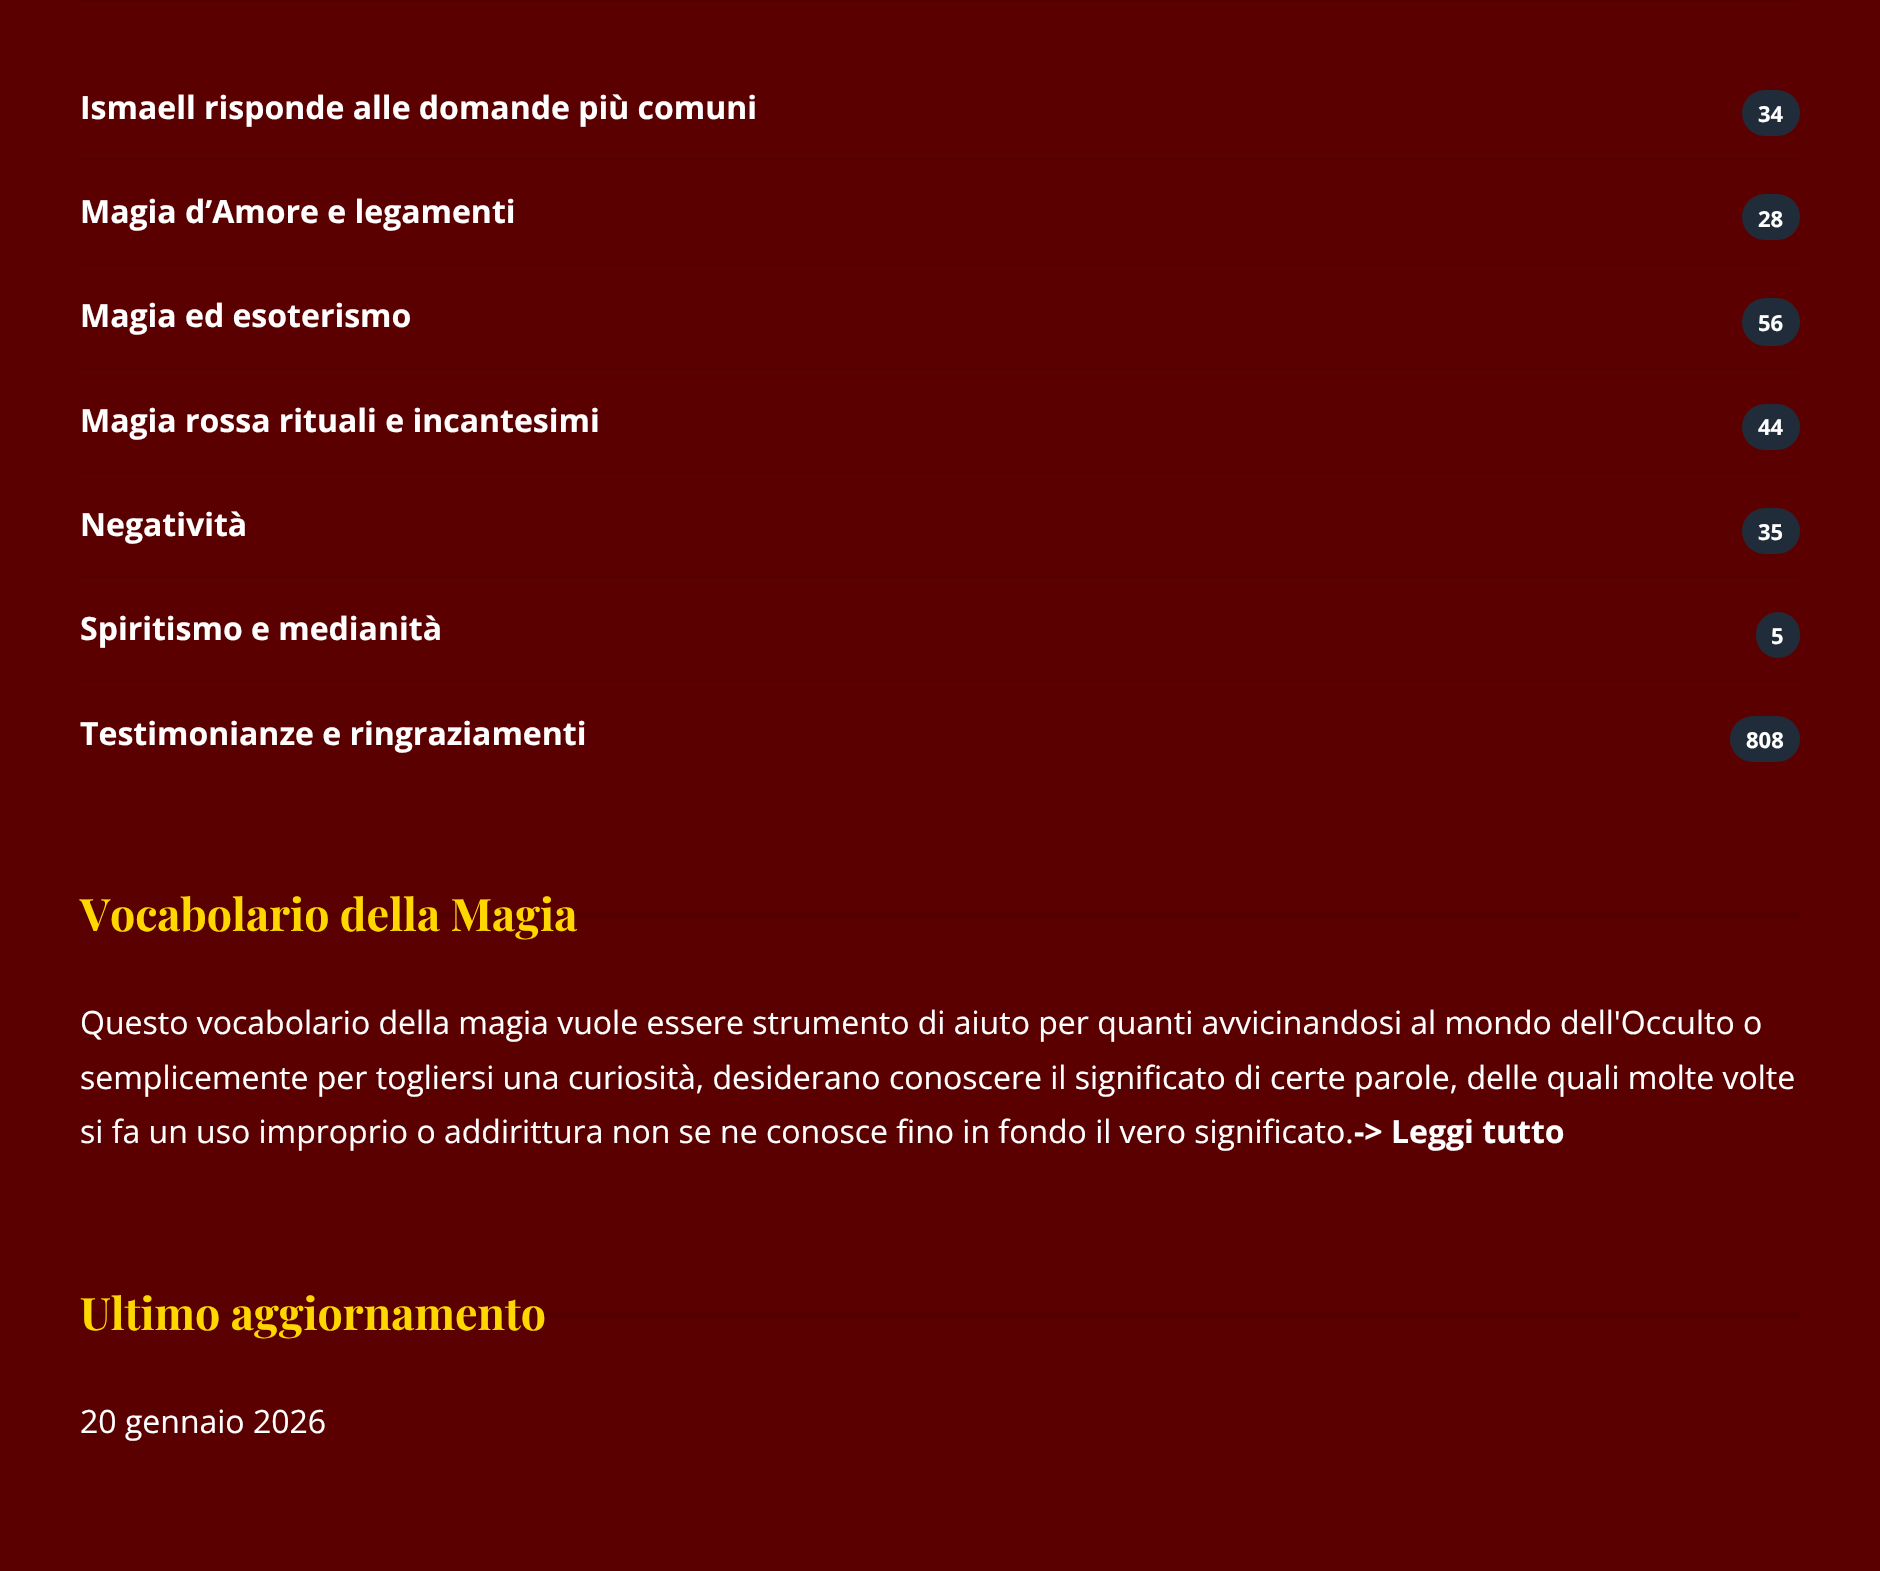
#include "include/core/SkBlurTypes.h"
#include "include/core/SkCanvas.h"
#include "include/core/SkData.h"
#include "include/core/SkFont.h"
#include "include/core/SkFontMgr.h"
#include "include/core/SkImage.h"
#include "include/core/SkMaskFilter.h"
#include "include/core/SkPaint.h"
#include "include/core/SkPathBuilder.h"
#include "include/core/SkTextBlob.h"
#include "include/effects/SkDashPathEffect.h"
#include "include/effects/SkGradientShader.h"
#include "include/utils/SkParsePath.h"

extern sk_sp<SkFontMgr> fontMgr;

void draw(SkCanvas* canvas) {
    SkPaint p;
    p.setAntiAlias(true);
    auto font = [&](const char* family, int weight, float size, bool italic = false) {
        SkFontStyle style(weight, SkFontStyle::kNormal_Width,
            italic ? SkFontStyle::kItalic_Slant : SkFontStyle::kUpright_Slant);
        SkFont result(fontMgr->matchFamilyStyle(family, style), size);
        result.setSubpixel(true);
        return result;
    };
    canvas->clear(0xFF5B0000);
    p.setColor(0xFF540000);
    canvas->drawRect(SkRect::MakeLTRB(80, 0, 1800, 2), p);
    canvas->drawRect(SkRect::MakeLTRB(80, 158, 1800, 160), p);
    auto font1 = font("Open Sans", 700, 32);
    p.setColor(0xFFFFFFFF);
    canvas->drawString("Ismaell risponde alle domande più comuni", 80, 119, font1, p);
    p.setColor(0xFF202C39);
    canvas->drawRoundRect(SkRect::MakeLTRB(1742, 90, 1800, 136), 23, 23, p);
    auto font2 = font("Open Sans", 700, 22);
    p.setColor(0xFFFFFFFF);
    canvas->drawString("34", 1758, 122, font2, p);
    p.setColor(0xFF540000);
    canvas->drawRect(SkRect::MakeLTRB(80, 264, 1800, 266), p);
    p.setColor(0xFFFFFFFF);
    canvas->drawString("Magia d’Amore e legamenti", 80, 223, font1, p);
    p.setColor(0xFF202C39);
    canvas->drawRoundRect(SkRect::MakeLTRB(1742, 194, 1800, 240), 23, 23, p);
    p.setColor(0xFFFFFFFF);
    canvas->drawString("28", 1758, 227, font2, p);
    p.setColor(0xFF540000);
    canvas->drawRect(SkRect::MakeLTRB(80, 368, 1800, 370), p);
    p.setColor(0xFFFFFFFF);
    canvas->drawString("Magia ed esoterismo", 80, 327, font1, p);
    p.setColor(0xFF202C39);
    canvas->drawRoundRect(SkRect::MakeLTRB(1742, 298, 1800, 346), 24, 24, p);
    p.setColor(0xFFFFFFFF);
    canvas->drawString("56", 1758, 331, font2, p);
    p.setColor(0xFF540000);
    canvas->drawRect(SkRect::MakeLTRB(80, 472, 1800, 474), p);
    p.setColor(0xFFFFFFFF);
    canvas->drawString("Magia rossa rituali e incantesimi", 80, 432, font1, p);
    p.setColor(0xFF202C39);
    canvas->drawRoundRect(SkRect::MakeLTRB(1742, 404, 1800, 450), 23, 23, p);
    p.setColor(0xFFFFFFFF);
    canvas->drawString("44", 1758, 435, font2, p);
    p.setColor(0xFF540000);
    canvas->drawRect(SkRect::MakeLTRB(80, 576, 1800, 578), p);
    p.setColor(0xFFFFFFFF);
    canvas->drawString("Negatività", 80, 536, font1, p);
    p.setColor(0xFF202C39);
    canvas->drawRoundRect(SkRect::MakeLTRB(1742, 508, 1800, 554), 23, 23, p);
    p.setColor(0xFFFFFFFF);
    canvas->drawString("35", 1758, 540, font2, p);
    p.setColor(0xFF540000);
    canvas->drawRect(SkRect::MakeLTRB(80, 680, 1800, 682), p);
    p.setColor(0xFFFFFFFF);
    canvas->drawString("Spiritismo e medianità", 80, 640, font1, p);
    p.setColor(0xFF202C39);
    canvas->drawRoundRect(SkRect::MakeLTRB(1756, 612, 1800, 658), 22, 22, p);
    p.setColor(0xFFFFFFFF);
    canvas->drawString("5", 1771, 644, font2, p);
    canvas->drawString("Testimonianze e ringraziamenti", 80, 745, font1, p);
    p.setColor(0xFF202C39);
    canvas->drawRoundRect(SkRect::MakeLTRB(1730, 716, 1800, 762), 23, 23, p);
    p.setColor(0xFFFFFFFF);
    canvas->drawString("808", 1746, 748, font2, p);
    p.setColor(0xFF540000);
    canvas->drawRect(SkRect::MakeLTRB(80, 912, 1800, 918), p);
    auto font3 = font("Playfair Display", 700, 44.75f);
    p.setColor(0xFFFFD700);
    canvas->drawString("Vocabolario della Magia", 80, 931, font3, p);
    auto font4 = font("Open Sans", 400, 32);
    p.setColor(0xFFFFFFFF);
    {
        const struct { const char* s; float x, y; } items[] = {
            {"Questo vocabolario della magia vuole essere strumento di aiuto per quanti avvicinandosi al mondo dell'Occulto o", 80, 1034},
            {"semplicemente per togliersi una curiosità, desiderano conoscere il significato di certe parole, delle quali molte volte", 80, 1089},
            {"si fa un uso improprio o addirittura non se ne conosce fino in fondo il vero significato.", 80, 1143},
        };
        for (auto [s, x, y] : items) {
            canvas->drawString(s, x, y, font4, p);
        }
    }
    canvas->drawString("-> Leggi tutto", 1354, 1143, font1, p);
    p.setColor(0xFF540000);
    canvas->drawRect(SkRect::MakeLTRB(80, 1312, 1800, 1318), p);
    p.setColor(0xFFFFD700);
    canvas->drawString("Ultimo aggiornamento", 80, 1330, font3, p);
    p.setColor(0xFFFFFFFF);
    canvas->drawString("20 gennaio 2026", 80, 1433, font4, p);
}
